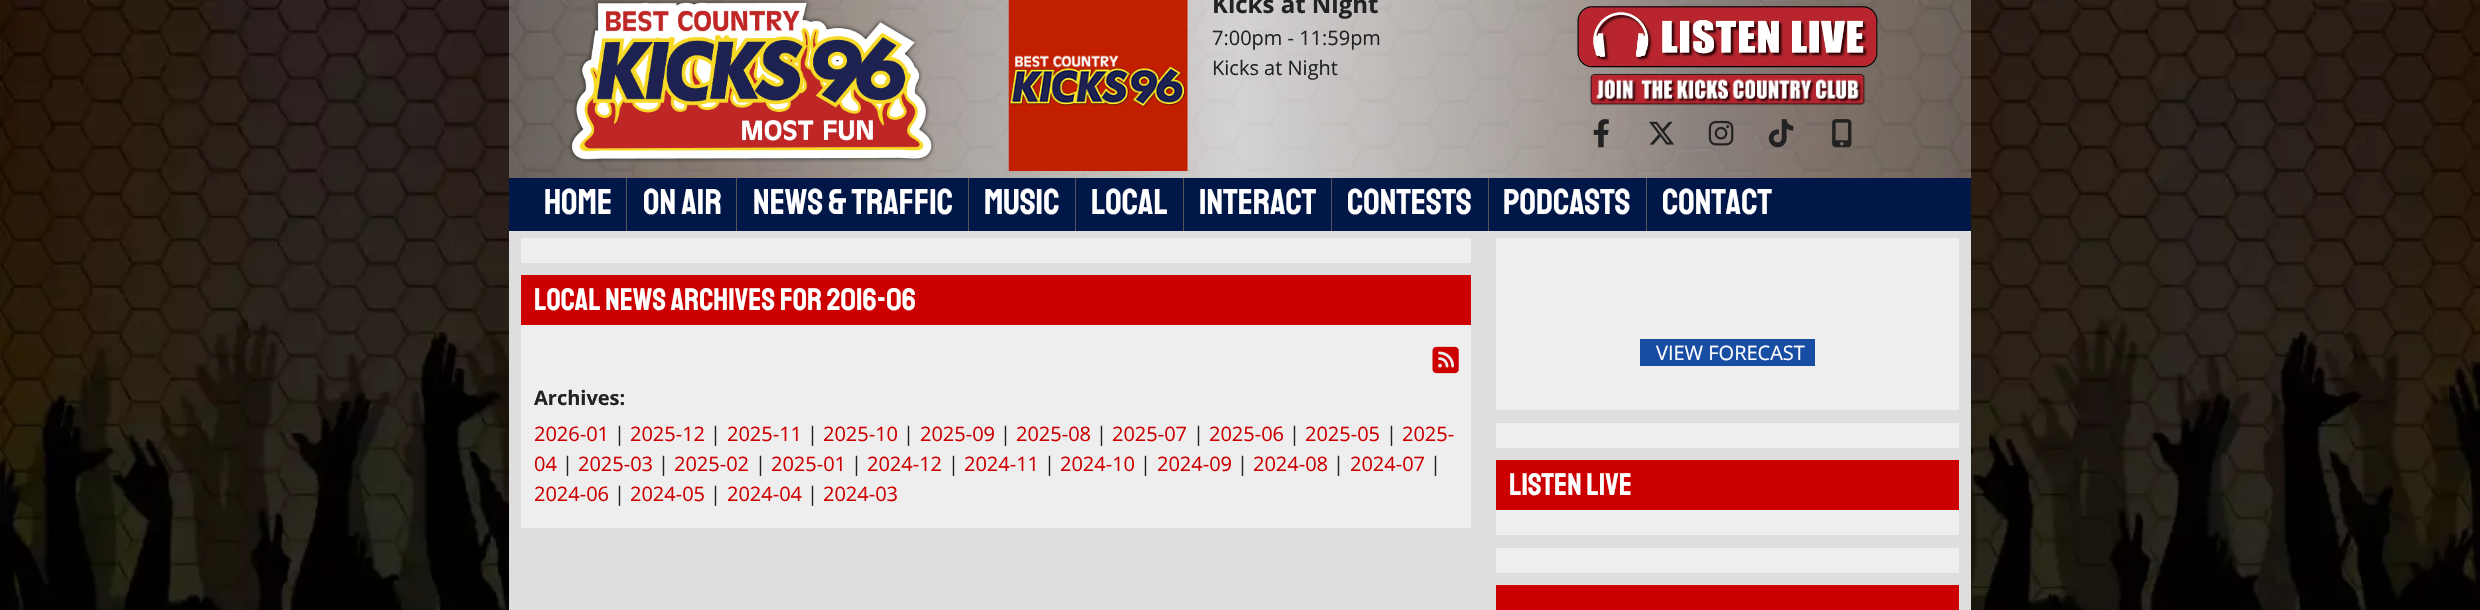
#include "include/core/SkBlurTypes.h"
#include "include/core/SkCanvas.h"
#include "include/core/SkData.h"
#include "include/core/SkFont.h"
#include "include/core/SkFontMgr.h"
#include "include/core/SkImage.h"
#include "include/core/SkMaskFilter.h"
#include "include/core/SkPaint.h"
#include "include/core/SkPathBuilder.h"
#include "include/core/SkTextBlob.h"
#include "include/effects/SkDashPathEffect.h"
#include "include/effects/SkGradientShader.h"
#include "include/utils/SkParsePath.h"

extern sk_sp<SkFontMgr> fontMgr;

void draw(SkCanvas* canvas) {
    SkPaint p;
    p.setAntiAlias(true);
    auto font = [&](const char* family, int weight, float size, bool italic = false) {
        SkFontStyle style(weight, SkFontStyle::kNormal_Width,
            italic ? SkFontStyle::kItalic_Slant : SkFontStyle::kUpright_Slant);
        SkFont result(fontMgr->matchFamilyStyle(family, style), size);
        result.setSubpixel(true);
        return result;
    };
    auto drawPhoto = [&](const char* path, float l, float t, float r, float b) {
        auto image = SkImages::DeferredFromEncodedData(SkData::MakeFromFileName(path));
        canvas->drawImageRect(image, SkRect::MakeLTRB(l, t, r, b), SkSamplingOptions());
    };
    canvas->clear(0xFFFFFFFF);
    drawPhoto("media/1.png", 0, 0, 2480, 610);
    drawPhoto("media/2.png", 568, 0, 935, 163);
    drawPhoto("media/3.png", 1008, 0, 1188, 171);
    auto font1 = font("Open Sans", 700, 24);
    p.setColor(0xFF222222);
    canvas->drawString("Kicks at Night", 1212, 13, font1, p);
    auto font2 = font("Open Sans", 400, 20);
    canvas->drawString("7:00pm - 11:59pm", 1212, 45, font2, p);
    canvas->drawString("Kicks at Night", 1212, 75, font2, p);
    drawPhoto("media/4.png", 1577, 6, 1878, 68);
    drawPhoto("media/5.png", 1589, 73, 1866, 106);
    drawPhoto("media/6.png", 1593, 119, 1609, 148);
    drawPhoto("media/7.png", 1649, 121, 1674, 145);
    drawPhoto("media/8.png", 1708, 120, 1734, 146);
    drawPhoto("media/9.png", 1768, 119, 1794, 148);
    drawPhoto("media/10.png", 1832, 119, 1852, 148);
    p.setColor(0xFF011747);
    canvas->drawRect(SkRect::MakeLTRB(509, 178, 1971, 231), p);
    p.setColor(0xFF565656);
    canvas->drawRect(SkRect::MakeLTRB(626, 178, 627, 231), p);
    auto font3 = font("Staatliches", 400, 36);
    p.setColor(0xFFFFFFFF);
    canvas->drawString("HOME", 544, 214, font3, p);
    p.setColor(0xFF565656);
    canvas->drawRect(SkRect::MakeLTRB(736, 178, 737, 231), p);
    p.setColor(0xFFFFFFFF);
    canvas->drawString("ON AIR", 643, 214, font3, p);
    p.setColor(0xFF565656);
    canvas->drawRect(SkRect::MakeLTRB(968, 178, 969, 231), p);
    p.setColor(0xFFFFFFFF);
    canvas->drawString("NEWS & TRAFFIC", 753, 214, font3, p);
    p.setColor(0xFF565656);
    canvas->drawRect(SkRect::MakeLTRB(1075, 178, 1076, 231), p);
    p.setColor(0xFFFFFFFF);
    canvas->drawString("MUSIC", 984, 214, font3, p);
    p.setColor(0xFF565656);
    canvas->drawRect(SkRect::MakeLTRB(1183, 178, 1184, 231), p);
    p.setColor(0xFFFFFFFF);
    canvas->drawString("LOCAL", 1091, 214, font3, p);
    p.setColor(0xFF565656);
    canvas->drawRect(SkRect::MakeLTRB(1331, 178, 1332, 231), p);
    p.setColor(0xFFFFFFFF);
    canvas->drawString("INTERACT", 1199, 214, font3, p);
    p.setColor(0xFF565656);
    canvas->drawRect(SkRect::MakeLTRB(1488, 178, 1489, 231), p);
    p.setColor(0xFFFFFFFF);
    canvas->drawString("CONTESTS", 1347, 214, font3, p);
    p.setColor(0xFF565656);
    canvas->drawRect(SkRect::MakeLTRB(1646, 178, 1647, 231), p);
    p.setColor(0xFFFFFFFF);
    canvas->drawString("PODCASTS", 1503, 214, font3, p);
    canvas->drawString("CONTACT", 1662, 214, font3, p);
    {
        const struct { float l, t, r, b; SkColor color; } items[] = {
            {509, 231, 1971, 610, 0xFFDEDEDE},
            {521, 238, 1471, 263, 0xFFEEEEEE},
            {521, 275, 1471, 325, 0xFFCC0000},
        };
        for (auto [l, t, r, b, color] : items) {
            p.setColor(color);
            canvas->drawRect(SkRect::MakeLTRB(l, t, r, b), p);
        }
    }
    auto font4 = font("Staatliches", 400, 31.25f);
    p.setColor(0xFFFFFFFF);
    canvas->drawString("LOCAL NEWS ARCHIVES FOR 2016-06", 534, 310, font4, p);
    p.setColor(0xFFEEEEEE);
    canvas->drawRect(SkRect::MakeLTRB(521, 325, 1471, 528), p);
    drawPhoto("media/11.png", 1432, 346, 1459, 374);
    auto font5 = font("Open Sans", 700, 20);
    p.setColor(0xFF222222);
    canvas->drawString("Archives:", 534, 405, font5, p);
    p.setColor(0xFFCC0000);
    canvas->drawString("2026-01", 534, 441, font2, p);
    p.setColor(0xFF222222);
    canvas->drawString("|", 614, 441, font2, p);
    p.setColor(0xFFCC0000);
    canvas->drawString("2025-12", 630, 441, font2, p);
    p.setColor(0xFF222222);
    canvas->drawString("|", 710, 441, font2, p);
    p.setColor(0xFFCC0000);
    canvas->drawString("2025-11", 727, 441, font2, p);
    p.setColor(0xFF222222);
    canvas->drawString("|", 807, 441, font2, p);
    p.setColor(0xFFCC0000);
    canvas->drawString("2025-10", 823, 441, font2, p);
    p.setColor(0xFF222222);
    canvas->drawString("|", 903, 441, font2, p);
    p.setColor(0xFFCC0000);
    canvas->drawString("2025-09", 920, 441, font2, p);
    p.setColor(0xFF222222);
    canvas->drawString("|", 1000, 441, font2, p);
    p.setColor(0xFFCC0000);
    canvas->drawString("2025-08", 1016, 441, font2, p);
    p.setColor(0xFF222222);
    canvas->drawString("|", 1096, 441, font2, p);
    p.setColor(0xFFCC0000);
    canvas->drawString("2025-07", 1112, 441, font2, p);
    p.setColor(0xFF222222);
    canvas->drawString("|", 1193, 441, font2, p);
    p.setColor(0xFFCC0000);
    canvas->drawString("2025-06", 1209, 441, font2, p);
    p.setColor(0xFF222222);
    canvas->drawString("|", 1289, 441, font2, p);
    p.setColor(0xFFCC0000);
    canvas->drawString("2025-05", 1305, 441, font2, p);
    p.setColor(0xFF222222);
    canvas->drawString("|", 1386, 441, font2, p);
    p.setColor(0xFFCC0000);
    canvas->drawString("2025-", 1402, 441, font2, p);
    canvas->drawString("04", 534, 471, font2, p);
    p.setColor(0xFF222222);
    canvas->drawString("|", 562, 471, font2, p);
    p.setColor(0xFFCC0000);
    canvas->drawString("2025-03", 578, 471, font2, p);
    p.setColor(0xFF222222);
    canvas->drawString("|", 658, 471, font2, p);
    p.setColor(0xFFCC0000);
    canvas->drawString("2025-02", 674, 471, font2, p);
    p.setColor(0xFF222222);
    canvas->drawString("|", 755, 471, font2, p);
    p.setColor(0xFFCC0000);
    canvas->drawString("2025-01", 771, 471, font2, p);
    p.setColor(0xFF222222);
    canvas->drawString("|", 851, 471, font2, p);
    p.setColor(0xFFCC0000);
    canvas->drawString("2024-12", 867, 471, font2, p);
    p.setColor(0xFF222222);
    canvas->drawString("|", 948, 471, font2, p);
    p.setColor(0xFFCC0000);
    canvas->drawString("2024-11", 964, 471, font2, p);
    p.setColor(0xFF222222);
    canvas->drawString("|", 1044, 471, font2, p);
    p.setColor(0xFFCC0000);
    canvas->drawString("2024-10", 1060, 471, font2, p);
    p.setColor(0xFF222222);
    canvas->drawString("|", 1140, 471, font2, p);
    p.setColor(0xFFCC0000);
    canvas->drawString("2024-09", 1157, 471, font2, p);
    p.setColor(0xFF222222);
    canvas->drawString("|", 1237, 471, font2, p);
    p.setColor(0xFFCC0000);
    canvas->drawString("2024-08", 1253, 471, font2, p);
    p.setColor(0xFF222222);
    canvas->drawString("|", 1333, 471, font2, p);
    p.setColor(0xFFCC0000);
    canvas->drawString("2024-07", 1350, 471, font2, p);
    p.setColor(0xFF222222);
    canvas->drawString("|", 1430, 471, font2, p);
    p.setColor(0xFFCC0000);
    canvas->drawString("2024-06", 534, 501, font2, p);
    p.setColor(0xFF222222);
    canvas->drawString("|", 614, 501, font2, p);
    p.setColor(0xFFCC0000);
    canvas->drawString("2024-05", 630, 501, font2, p);
    p.setColor(0xFF222222);
    canvas->drawString("|", 710, 501, font2, p);
    p.setColor(0xFFCC0000);
    canvas->drawString("2024-04", 727, 501, font2, p);
    p.setColor(0xFF222222);
    canvas->drawString("|", 807, 501, font2, p);
    p.setColor(0xFFCC0000);
    canvas->drawString("2024-03", 823, 501, font2, p);
    p.setColor(0xFFEEEEEE);
    canvas->drawRect(SkRect::MakeLTRB(1496, 238, 1959, 410), p);
    p.setColor(0xFF184DA4);
    canvas->drawRect(SkRect::MakeLTRB(1640, 339, 1815, 366), p);
    p.setColor(0xFFFFFFFF);
    canvas->drawString("VIEW FORECAST", 1656, 360, font2, p);
    p.setColor(0xFFEEEEEE);
    canvas->drawRect(SkRect::MakeLTRB(1496, 423, 1959, 448), p);
    p.setColor(0xFFCC0000);
    canvas->drawRect(SkRect::MakeLTRB(1496, 460, 1959, 510), p);
    p.setColor(0xFFFFFFFF);
    canvas->drawString("LISTEN LIVE", 1509, 495, font4, p);
    {
        const struct { float l, t, r, b; SkColor color; } items[] = {
            {1496, 510, 1959, 535, 0xFFEEEEEE},
            {1496, 548, 1959, 573, 0xFFEEEEEE},
            {1496, 585, 1959, 610, 0xFFCC0000},
        };
        for (auto [l, t, r, b, color] : items) {
            p.setColor(color);
            canvas->drawRect(SkRect::MakeLTRB(l, t, r, b), p);
        }
    }
}
